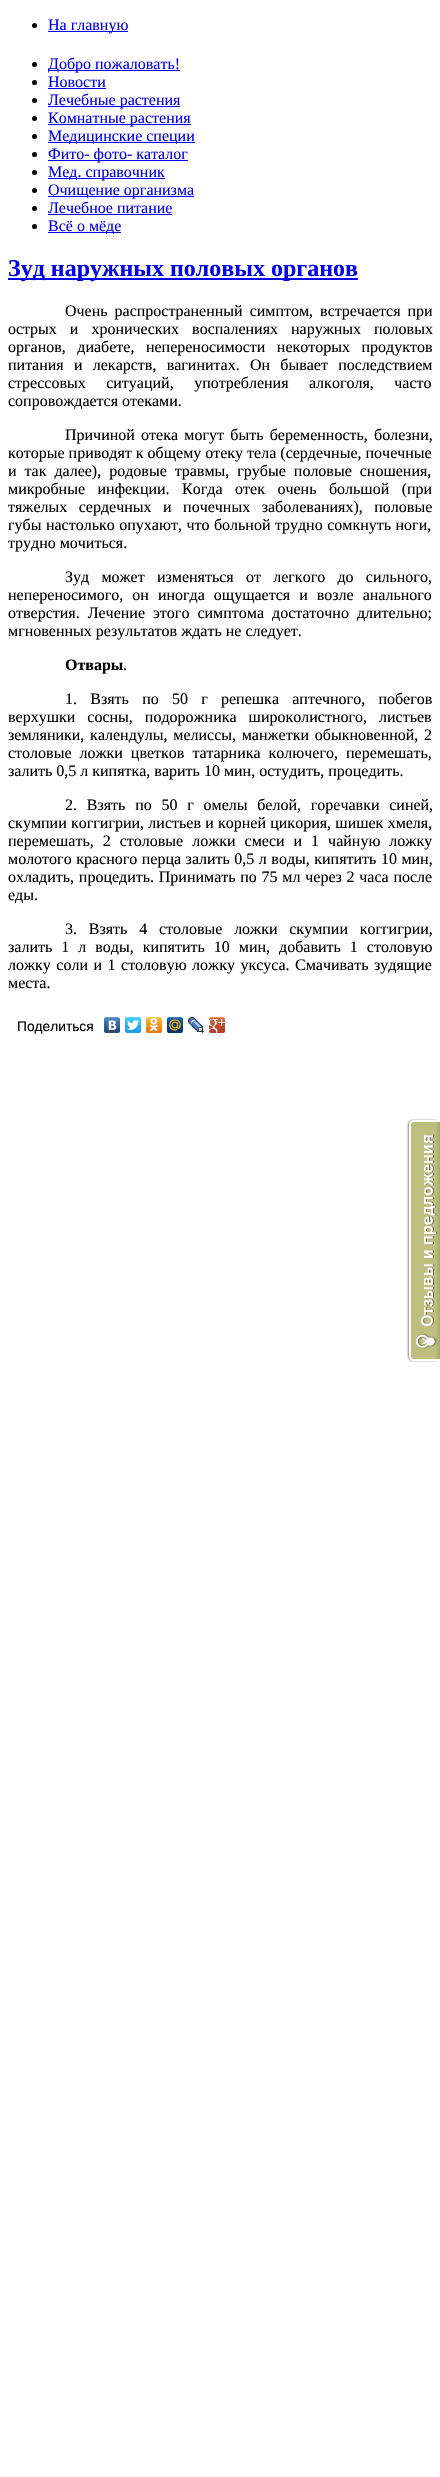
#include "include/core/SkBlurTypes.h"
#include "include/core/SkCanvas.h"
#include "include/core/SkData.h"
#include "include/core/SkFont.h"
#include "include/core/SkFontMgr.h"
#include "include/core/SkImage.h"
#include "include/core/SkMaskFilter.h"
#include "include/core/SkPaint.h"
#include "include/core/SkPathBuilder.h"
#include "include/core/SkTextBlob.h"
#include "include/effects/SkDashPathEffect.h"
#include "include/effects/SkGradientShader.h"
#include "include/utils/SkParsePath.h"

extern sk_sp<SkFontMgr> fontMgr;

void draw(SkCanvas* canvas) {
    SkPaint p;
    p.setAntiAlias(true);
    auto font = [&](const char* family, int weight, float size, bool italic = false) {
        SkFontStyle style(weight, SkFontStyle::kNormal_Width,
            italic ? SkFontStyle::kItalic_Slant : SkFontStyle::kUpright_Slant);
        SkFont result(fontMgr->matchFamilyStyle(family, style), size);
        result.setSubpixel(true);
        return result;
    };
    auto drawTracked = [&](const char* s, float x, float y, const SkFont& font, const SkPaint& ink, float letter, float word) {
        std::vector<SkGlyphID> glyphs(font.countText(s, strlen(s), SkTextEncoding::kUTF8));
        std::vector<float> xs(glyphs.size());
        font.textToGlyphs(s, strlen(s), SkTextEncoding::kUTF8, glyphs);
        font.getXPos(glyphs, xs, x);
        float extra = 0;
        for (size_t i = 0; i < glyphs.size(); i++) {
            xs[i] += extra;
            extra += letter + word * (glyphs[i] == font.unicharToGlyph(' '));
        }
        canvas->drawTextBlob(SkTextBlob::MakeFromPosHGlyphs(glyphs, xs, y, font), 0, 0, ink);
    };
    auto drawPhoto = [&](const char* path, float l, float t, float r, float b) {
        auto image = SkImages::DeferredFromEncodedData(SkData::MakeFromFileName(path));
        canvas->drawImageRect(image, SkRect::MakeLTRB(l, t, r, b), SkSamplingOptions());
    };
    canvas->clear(0xFFFFFFFF);
    p.setColor(0xFF000000);
    canvas->drawCircle(34.5f, 25.5f, 2.5f, p);
    p.setColor(0xFF0000EE);
    canvas->drawRect(SkRect::MakeLTRB(48, 31, 128, 32), p);
    auto font1 = font("Liberation Serif", 400, 16);
    canvas->drawString("На главную", 48, 30, font1, p);
    p.setColor(0xFF000000);
    canvas->drawCircle(34.5f, 64.5f, 2.5f, p);
    p.setColor(0xFF0000EE);
    canvas->drawRect(SkRect::MakeLTRB(48, 70, 180, 71), p);
    canvas->drawString("Добро пожаловать!", 48, 69, font1, p);
    p.setColor(0xFF000000);
    canvas->drawCircle(34.5f, 82.5f, 2.5f, p);
    p.setColor(0xFF0000EE);
    canvas->drawString("Новости", 48, 87, font1, p);
    canvas->drawRect(SkRect::MakeLTRB(48, 88, 106, 89), p);
    p.setColor(0xFF000000);
    canvas->drawCircle(34.5f, 100.5f, 2.5f, p);
    p.setColor(0xFF0000EE);
    canvas->drawRect(SkRect::MakeLTRB(48, 106, 180, 107), p);
    canvas->drawString("Лечебные растения", 48, 105, font1, p);
    p.setColor(0xFF000000);
    canvas->drawCircle(34.5f, 118.5f, 2.5f, p);
    p.setColor(0xFF0000EE);
    canvas->drawRect(SkRect::MakeLTRB(48, 124, 191, 125), p);
    canvas->drawString("Комнатные растения", 48, 123, font1, p);
    p.setColor(0xFF000000);
    canvas->drawCircle(34.5f, 136.5f, 2.5f, p);
    p.setColor(0xFF0000EE);
    canvas->drawRect(SkRect::MakeLTRB(48, 142, 195, 143), p);
    canvas->drawString("Медицинские специи", 48, 141, font1, p);
    p.setColor(0xFF000000);
    canvas->drawCircle(34.5f, 154.5f, 2.5f, p);
    p.setColor(0xFF0000EE);
    canvas->drawRect(SkRect::MakeLTRB(48, 160, 188, 161), p);
    canvas->drawString("Фито- фото- каталог", 48, 159, font1, p);
    p.setColor(0xFF000000);
    canvas->drawCircle(34.5f, 172.5f, 2.5f, p);
    p.setColor(0xFF0000EE);
    canvas->drawRect(SkRect::MakeLTRB(48, 178, 165, 179), p);
    canvas->drawString("Мед. справочник", 48, 177, font1, p);
    p.setColor(0xFF000000);
    canvas->drawCircle(34.5f, 190.5f, 2.5f, p);
    p.setColor(0xFF0000EE);
    canvas->drawRect(SkRect::MakeLTRB(48, 196, 194, 197), p);
    canvas->drawString("Очищение организма", 48, 195, font1, p);
    p.setColor(0xFF000000);
    canvas->drawCircle(34.5f, 208.5f, 2.5f, p);
    p.setColor(0xFF0000EE);
    canvas->drawString("Лечебное питание", 48, 213, font1, p);
    canvas->drawRect(SkRect::MakeLTRB(48, 214, 172, 215), p);
    p.setColor(0xFF000000);
    canvas->drawCircle(34.5f, 226.5f, 2.5f, p);
    p.setColor(0xFF0000EE);
    canvas->drawRect(SkRect::MakeLTRB(48, 232, 121, 233), p);
    canvas->drawString("Всё о мёде", 48, 231, font1, p);
    canvas->drawRect(SkRect::MakeLTRB(8, 278, 358, 280), p);
    auto font2 = font("Liberation Serif", 700, 24);
    canvas->drawString("Зуд наружных половых органов", 8, 276, font2, p);
    p.setColor(0xFF000000);
    drawTracked("Очень распространенный симптом, встречается при", 65, 316, font1, p, 0, 3);
    drawTracked("острых и хронических воспалениях наружных половых", 8, 334, font1, p, 0, 9);
    drawTracked("органов, диабете, непереносимости некоторых продуктов", 8, 352, font1, p, 0, 7.5f);
    drawTracked("питания и лекарств, вагинитах. Он бывает последствием", 8, 370, font1, p, 0, 6.25f);
    drawTracked("стрессовых ситуаций, употребления алкоголя, часто", 8, 388, font1, p, 0, 16.5f);
    canvas->drawString("сопровождается отеками.", 8, 406, font1, p);
    drawTracked("Причиной отека могут быть беременность, болезни,", 65, 440, font1, p, 0, 2.25f);
    canvas->drawString("которые приводят к общему отеку тела (сердечные, почечные", 8, 458, font1, p);
    drawTracked("и так далее), родовые травмы, грубые половые сношения,", 8, 476, font1, p, 0, 4);
    drawTracked("микробные инфекции. Когда отек очень большой (при", 8, 494, font1, p, 0, 8.5f);
    drawTracked("тяжелых сердечных и почечных заболеваниях), половые", 8, 512, font1, p, 0, 7.5f);
    drawTracked("губы настолько опухают, что больной трудно сомкнуть ноги,", 8, 530, font1, p, 0, 0.5f);
    canvas->drawString("трудно мочиться.", 8, 548, font1, p);
    drawTracked("Зуд может изменяться от легкого до сильного,", 65, 582, font1, p, 0, 8.25f);
    drawTracked("непереносимого, он иногда ощущается и возле анального", 8, 600, font1, p, 0, 5);
    drawTracked("отверстия. Лечение этого симптома достаточно длительно;", 8, 618, font1, p, 0, 4);
    canvas->drawString("мгновенных результатов ждать не следует.", 8, 636, font1, p);
    auto font3 = font("Liberation Serif", 700, 16);
    canvas->drawString("Отвары", 65, 670, font3, p);
    canvas->drawString(".", 123, 670, font1, p);
    drawTracked("1. Взять по 50 г репешка аптечного, побегов", 65, 704, font1, p, 0, 9.25f);
    drawTracked("верхушки сосны, подорожника широколистного, листьев", 8, 722, font1, p, 0, 8);
    drawTracked("земляники, календулы, мелиссы, манжетки обыкновенной, 2", 8, 740, font1, p, 0, 1.75f);
    drawTracked("столовые ложки цветков татарника колючего, перемешать,", 8, 758, font1, p, 0, 4);
    canvas->drawString("залить 0,5 л кипятка, варить 10 мин, остудить, процедить.", 8, 776, font1, p);
    drawTracked("2. Взять по 50 г омелы белой, горечавки синей,", 65, 810, font1, p, 0, 5.75f);
    drawTracked("скумпии коггигрии, листьев и корней цикория, шишек хмеля,", 8, 828, font1, p, 0, 0.25f);
    drawTracked("перемешать, 2 столовые ложки смеси и 1 чайную ложку", 8, 846, font1, p, 0, 5);
    drawTracked("молотого красного перца залить 0,5 л воды, кипятить 10 мин,", 8, 864, font1, p, 0, 0.5f);
    drawTracked("охладить, процедить. Принимать по 75 мл через 2 часа после", 8, 882, font1, p, 0, 0.75f);
    canvas->drawString("еды.", 8, 900, font1, p);
    drawTracked("3. Взять 4 столовые ложки скумпии коггигрии,", 65, 934, font1, p, 0, 7.75f);
    drawTracked("залить 1 л воды, кипятить 10 мин, добавить 1 столовую", 8, 952, font1, p, 0, 5);
    drawTracked("ложку соли и 1 столовую ложку уксуса. Смачивать зудящие", 8, 970, font1, p, 0, 1.5f);
    canvas->drawString("места.", 8, 988, font1, p);
    auto font4 = font("Liberation Sans", 400, 13.75f);
    canvas->drawString("Поделиться", 17, 1031, font4, p);
    drawPhoto("media/1.png", 104, 1017, 120, 1033);
    drawPhoto("media/2.png", 125, 1017, 141, 1033);
    drawPhoto("media/3.png", 146, 1017, 162, 1033);
    drawPhoto("media/4.png", 167, 1017, 183, 1033);
    drawPhoto("media/5.png", 188, 1017, 204, 1033);
    drawPhoto("media/6.png", 209, 1017, 225, 1033);
    p.setColor(0xFF888888);
    p.setMaskFilter(SkMaskFilter::MakeBlur(kNormal_SkBlurStyle, 1));
    canvas->drawRoundRect(SkRect::MakeLTRB(408, 1120, 439, 1361), 5, 5, p);
    p.setMaskFilter(nullptr);
    p.setColor(0xFFBEBE7E);
    canvas->drawPath(SkPathBuilder().moveTo(414, 1120).lineTo(440, 1120).lineTo(440, 1361).lineTo(414, 1361).cubicTo(411, 1361, 409, 1359, 409, 1356).lineTo(409, 1125).cubicTo(409, 1122, 411, 1120, 414, 1120).close().detach(), p);
    drawPhoto("media/7.png", 436, 1122, 440, 1359);
    p.setColor(0xFFFFFFFF);
    canvas->drawPath(SkPathBuilder(SkPathFillType::kEvenOdd).moveTo(414, 1120).lineTo(440, 1120).lineTo(440, 1361).lineTo(414, 1361).cubicTo(411, 1361, 409, 1359, 409, 1356).lineTo(409, 1125).cubicTo(409, 1122, 411, 1120, 414, 1120).close().moveTo(414, 1122).lineTo(440, 1122).lineTo(440, 1359).lineTo(414, 1359).cubicTo(412, 1359, 411, 1358, 411, 1356).lineTo(411, 1125).cubicTo(411, 1123, 412, 1122, 414, 1122).close().detach(), p);
    drawPhoto("media/8.png", 416, 1135, 437, 1349);
}
